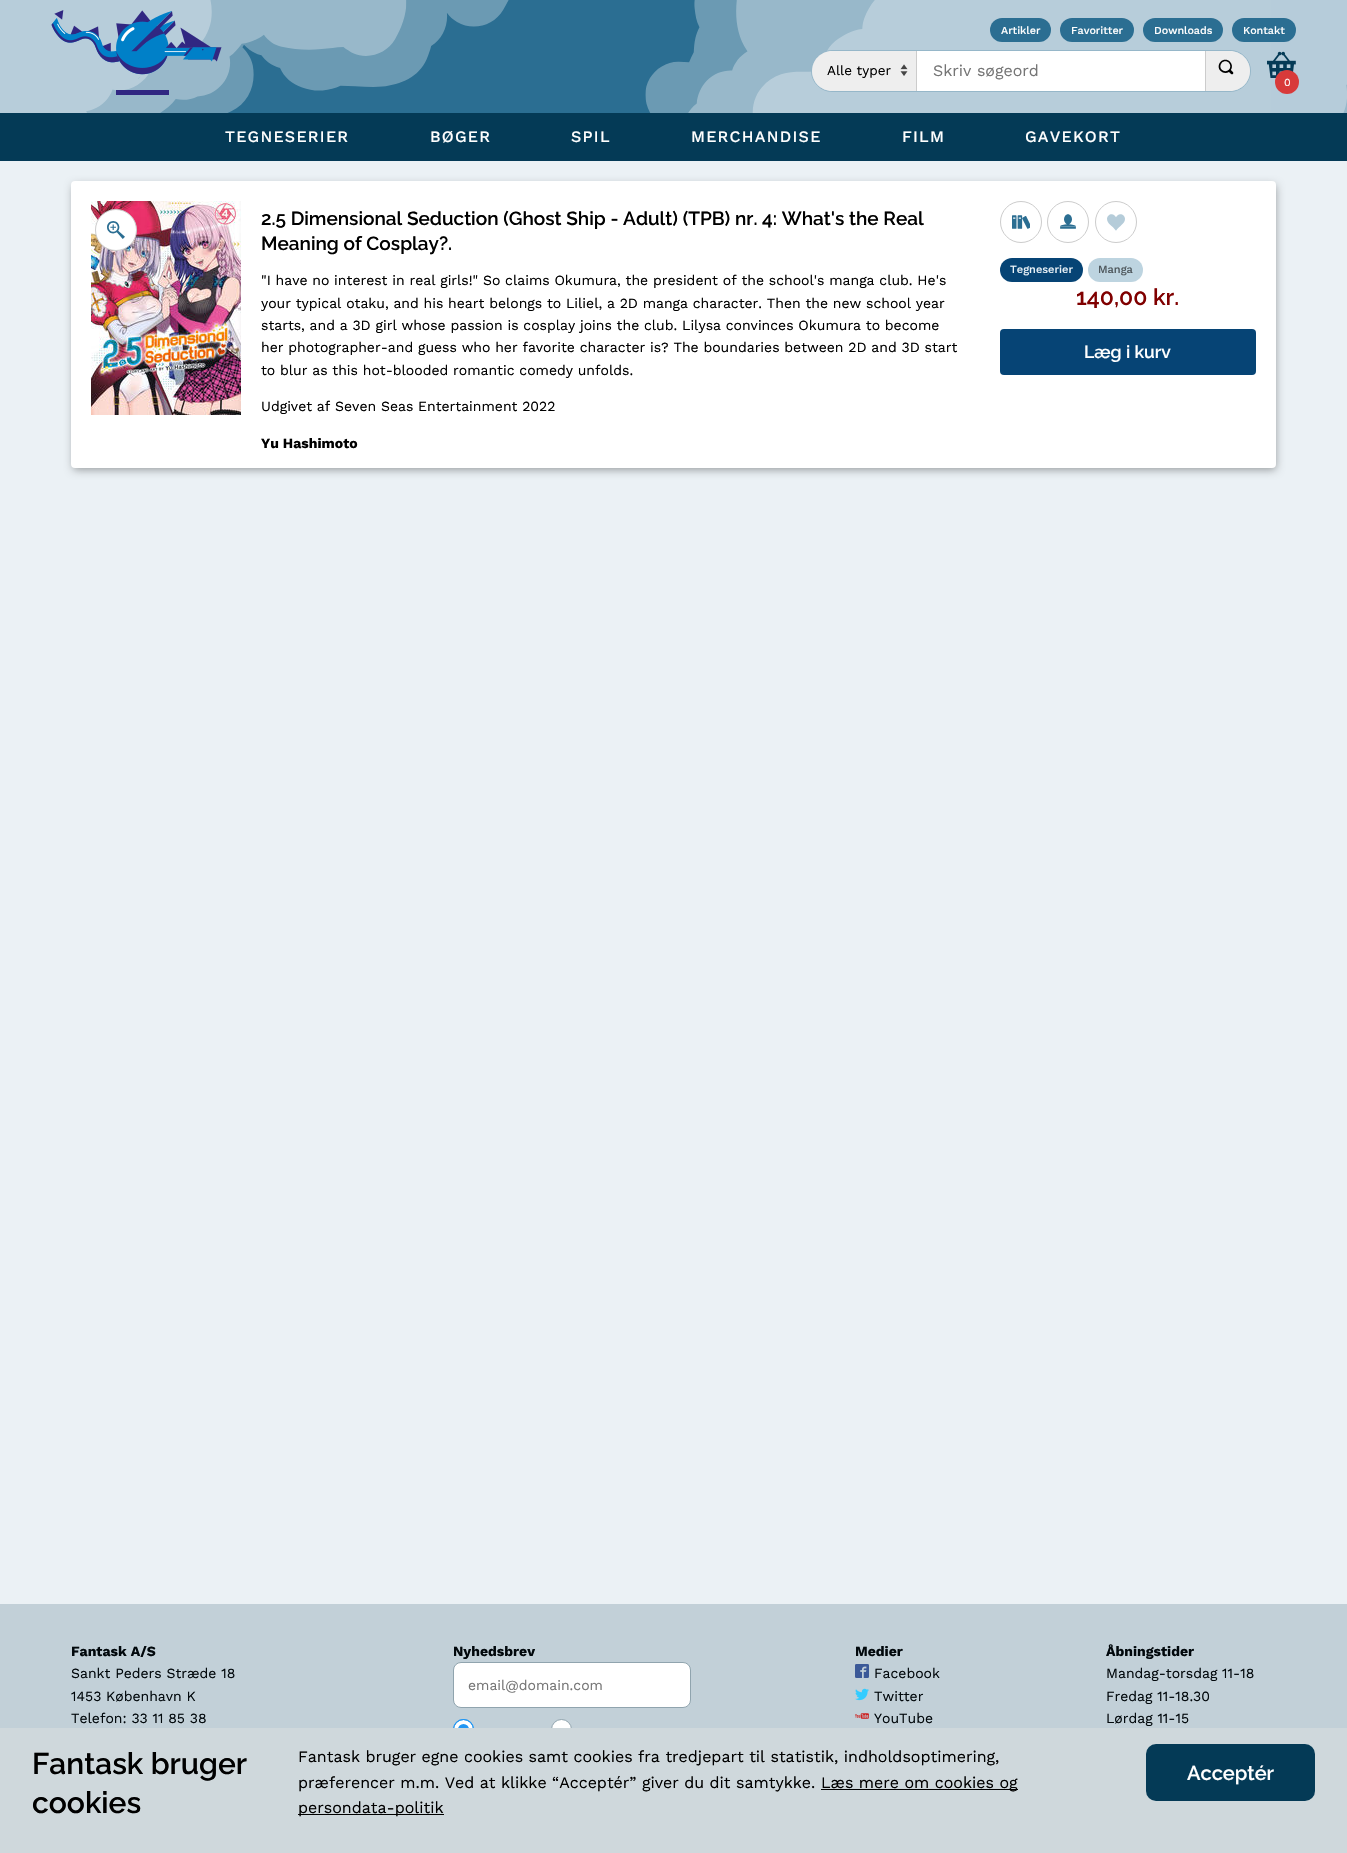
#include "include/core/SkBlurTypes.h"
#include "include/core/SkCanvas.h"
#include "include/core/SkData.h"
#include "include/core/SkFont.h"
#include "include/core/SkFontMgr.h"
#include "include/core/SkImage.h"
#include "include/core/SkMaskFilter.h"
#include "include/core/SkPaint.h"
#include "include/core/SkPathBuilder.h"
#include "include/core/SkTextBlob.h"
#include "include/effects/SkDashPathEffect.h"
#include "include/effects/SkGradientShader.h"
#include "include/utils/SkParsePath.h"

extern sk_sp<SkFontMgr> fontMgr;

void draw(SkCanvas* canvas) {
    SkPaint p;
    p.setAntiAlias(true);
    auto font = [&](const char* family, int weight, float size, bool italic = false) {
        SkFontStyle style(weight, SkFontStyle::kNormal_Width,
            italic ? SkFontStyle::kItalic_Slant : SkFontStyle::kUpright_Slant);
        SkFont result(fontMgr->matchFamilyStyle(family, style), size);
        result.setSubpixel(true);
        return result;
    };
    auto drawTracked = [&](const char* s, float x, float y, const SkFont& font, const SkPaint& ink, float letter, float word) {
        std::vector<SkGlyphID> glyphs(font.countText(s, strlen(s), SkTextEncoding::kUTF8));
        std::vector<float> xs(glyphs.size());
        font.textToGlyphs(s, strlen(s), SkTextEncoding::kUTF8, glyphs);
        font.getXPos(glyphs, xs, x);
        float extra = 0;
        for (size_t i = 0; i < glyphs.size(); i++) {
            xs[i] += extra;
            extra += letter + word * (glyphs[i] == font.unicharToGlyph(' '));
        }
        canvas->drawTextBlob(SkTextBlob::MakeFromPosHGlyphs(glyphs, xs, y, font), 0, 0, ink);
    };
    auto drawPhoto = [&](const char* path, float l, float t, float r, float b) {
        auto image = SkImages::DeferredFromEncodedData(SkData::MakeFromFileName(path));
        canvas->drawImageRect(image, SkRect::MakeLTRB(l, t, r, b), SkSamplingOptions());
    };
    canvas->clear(0xFFEBF1F5);
    drawPhoto("media/1.png", 0, 0, 1347, 113);
    drawPhoto("media/2.png", 51, 10, 222, 95);
    p.setColor(0xFF2B6E92);
    canvas->drawRoundRect(SkRect::MakeLTRB(990, 18, 1051, 42), 12, 12, p);
    auto font1 = font("Work Sans", 500, 10.75f);
    p.setColor(0xFFFFFFFF);
    canvas->drawString("Artikler", 1001, 34, font1, p);
    p.setColor(0xFF2B6E92);
    canvas->drawRoundRect(SkRect::MakeLTRB(1060, 18, 1134, 42), 12, 12, p);
    p.setColor(0xFFFFFFFF);
    canvas->drawString("Favoritter", 1071, 34, font1, p);
    p.setColor(0xFF2B6E92);
    canvas->drawRoundRect(SkRect::MakeLTRB(1143, 18, 1223, 42), 12, 12, p);
    p.setColor(0xFFFFFFFF);
    canvas->drawString("Downloads", 1154, 34, font1, p);
    p.setColor(0xFF2B6E92);
    canvas->drawRoundRect(SkRect::MakeLTRB(1232, 18, 1296, 42), 12, 12, p);
    p.setColor(0xFFFFFFFF);
    canvas->drawString("Kontakt", 1243, 34, font1, p);
    p.setStyle(SkPaint::kStroke_Style);
    p.setStrokeWidth(1);
    p.setColor(0xFF96B7C9);
    canvas->drawRoundRect(SkRect::MakeLTRB(811.5f, 50.5f, 1250.5f, 91.5f), 20.5f, 20.5f, p);
    p.setStyle(SkPaint::kFill_Style);
    p.setColor(0xFFEEEEEE);
    canvas->drawPath(SkPathBuilder().moveTo(832, 51).lineTo(916, 51).lineTo(916, 91).lineTo(832, 91).cubicTo(821, 91, 812, 82, 812, 71).cubicTo(812, 60, 821, 51, 832, 51).close().detach(), p);
    drawPhoto("media/3.png", 900, 64, 908, 76);
    p.setColor(0xFFCCCCCC);
    canvas->drawRect(SkRect::MakeLTRB(916, 51, 917, 91), p);
    auto font2 = font("Work Sans", 400, 13.5f);
    p.setColor(0xFF000000);
    canvas->drawString("Alle typer", 827, 75, font2, p);
    p.setColor(0xFFFFFFFF);
    canvas->drawRect(SkRect::MakeLTRB(917, 51, 1205, 91), p);
    auto font3 = font("Work Sans", 400, 16);
    p.setColor(0xFF757575);
    canvas->drawString("Skriv søgeord", 933, 76, font3, p);
    p.setColor(0xFFEEEEEE);
    canvas->drawPath(SkPathBuilder().moveTo(1206, 51).lineTo(1230, 51).cubicTo(1241, 51, 1250, 60, 1250, 71).cubicTo(1250, 82, 1241, 91, 1230, 91).lineTo(1206, 91).close().detach(), p);
    p.setColor(0xFFCCCCCC);
    canvas->drawRect(SkRect::MakeLTRB(1205, 51, 1206, 91), p);
    drawPhoto("media/4.png", 1218, 59, 1234, 75);
    drawPhoto("media/5.png", 1267, 51, 1296, 78);
    p.setColor(0xFFD83A3A);
    canvas->drawCircle(1287, 82, 12, p);
    auto font4 = font("Work Sans", 400, 10.75f);
    p.setColor(0xFFFFFFFF);
    canvas->drawString("0", 1284, 86, font4, p);
    p.setColor(0xFF043A56);
    canvas->drawRect(SkRect::MakeLTRB(0, 113, 1347, 161), p);
    auto font5 = font("Work Sans", 500, 16);
    p.setColor(0xFFFFFFFF);
    {
        const struct { const char* s; float x, y; } items[] = {
            {"TEGNESERIER", 225, 142},
            {"BØGER", 430, 142},
            {"SPIL", 571, 142},
            {"MERCHANDISE", 691, 142},
            {"FILM", 902, 142},
            {"GAVEKORT", 1025, 142},
        };
        for (auto [s, x, y] : items) {
            drawTracked(s, x, y, font5, p, 1.25f, 0);
        }
    }
    p.setColor(0x59000000);
    p.setMaskFilter(SkMaskFilter::MakeBlur(kNormal_SkBlurStyle, 4));
    canvas->drawRoundRect(SkRect::MakeLTRB(73, 185, 1276, 470), 3, 3, p);
    p.setMaskFilter(nullptr);
    p.setColor(0xFFFFFFFF);
    canvas->drawRoundRect(SkRect::MakeLTRB(71, 181, 1276, 468), 4, 4, p);
    drawPhoto("media/6.png", 91, 201, 241, 415);
    canvas->drawCircle(116, 230, 20.5f, p);
    p.setStyle(SkPaint::kStroke_Style);
    p.setColor(0xFFCCCCCC);
    canvas->drawCircle(116, 230, 20.5f, p);
    drawPhoto("media/7.png", 107, 221, 125, 239);
    auto font6 = font("Raleway", 100, 19);
    p.setStyle(SkPaint::kFill_Style);
    p.setColor(0xFF000000);
    canvas->drawString("2.5 Dimensional Seduction (Ghost Ship - Adult) (TPB) nr. 4: What's the Real", 261, 225, font6, p);
    canvas->drawString("Meaning of Cosplay?.", 261, 250, font6, p);
    auto font7 = font("Work Sans", 400, 14);
    {
        const struct { const char* s; float x, y; } items[] = {
            {"\"I have no interest in real girls!\" So claims Okumura, the president of the school's manga club. He's", 261, 285},
            {"your typical otaku, and his heart belongs to Liliel, a 2D manga character. Then the new school year", 261, 308},
            {"starts, and a 3D girl whose passion is cosplay joins the club. Lilysa convinces Okumura to become", 261, 330},
            {"her photographer-and guess who her favorite character is? The boundaries between 2D and 3D start", 261, 352},
            {"to blur as this hot-blooded romantic comedy unfolds.", 261, 375},
            {"Udgivet af Seven Seas Entertainment 2022", 261, 411},
        };
        for (auto [s, x, y] : items) {
            canvas->drawString(s, x, y, font7, p);
        }
    }
    auto font8 = font("Work Sans", 700, 14);
    canvas->drawString("Yu Hashimoto", 261, 448, font8, p);
    p.setStyle(SkPaint::kStroke_Style);
    p.setColor(0xFFCCCCCC);
    canvas->drawCircle(1021, 222, 20.5f, p);
    drawPhoto("media/8.png", 1012, 215, 1030, 229);
    canvas->drawCircle(1068, 222, 20.5f, p);
    drawPhoto("media/9.png", 1060, 214, 1076, 229);
    canvas->drawCircle(1116, 222, 20.5f, p);
    drawPhoto("media/10.png", 1107, 214, 1125, 231);
    p.setStyle(SkPaint::kFill_Style);
    p.setColor(0xFF064475);
    canvas->drawRoundRect(SkRect::MakeLTRB(1000, 258, 1083, 282), 12, 12, p);
    auto font9 = font("Work Sans", 500, 11);
    p.setColor(0xFFECF4F9);
    canvas->drawString("Tegneserier", 1010, 273, font9, p);
    p.setColor(0xFFBDD4E0);
    canvas->drawRoundRect(SkRect::MakeLTRB(1088, 258, 1143, 282), 12, 12, p);
    p.setColor(0xFF4C555A);
    canvas->drawString("Manga", 1098, 273, font9, p);
    auto font10 = font("Raleway", 100, 23);
    p.setColor(0xFF800000);
    canvas->drawString("140,00 kr.", 1076, 305, font10, p);
    p.setColor(0xFF064475);
    canvas->drawRoundRect(SkRect::MakeLTRB(1000, 329, 1256, 375), 4, 4, p);
    auto font11 = font("Raleway", 100, 17.5f);
    p.setColor(0xFFFFFFFF);
    canvas->drawString("Læg i kurv", 1084, 358, font11, p);
    p.setColor(0xFFC2D0D8);
    canvas->drawRect(SkRect::MakeLTRB(0, 1604, 1347, 1728), p);
    p.setColor(0xFF01080C);
    canvas->drawString("Fantask A/S", 71, 1656, font8, p);
    {
        const struct { const char* s; float x, y; } items[] = {
            {"Sankt Peders Stræde 18", 71, 1678},
            {"1453 København K", 71, 1701},
            {"Telefon: 33 11 85 38", 71, 1723},
        };
        for (auto [s, x, y] : items) {
            canvas->drawString(s, x, y, font7, p);
        }
    }
    canvas->drawString("Nyhedsbrev", 453, 1656, font8, p);
    p.setColor(0xFFFFFFFF);
    canvas->drawRoundRect(SkRect::MakeLTRB(453.5f, 1662.5f, 690.5f, 1707.5f), 7.5f, 7.5f, p);
    p.setStyle(SkPaint::kStroke_Style);
    p.setColor(0xFF90A4AE);
    canvas->drawRoundRect(SkRect::MakeLTRB(453.5f, 1662.5f, 690.5f, 1707.5f), 7.5f, 7.5f, p);
    p.setStyle(SkPaint::kFill_Style);
    p.setColor(0xFF757575);
    canvas->drawString("email@domain.com", 468, 1690, font7, p);
    p.setColor(0xFF2196F3);
    canvas->drawCircle(463.5f, 1729.5f, 10.5f, p);
    p.setStyle(SkPaint::kStroke_Style);
    p.setStrokeWidth(4);
    p.setColor(0xFFFFFFFF);
    canvas->drawCircle(463.5f, 1729.5f, 7.5f, p);
    p.setStrokeWidth(1);
    p.setColor(0xFF2196F3);
    canvas->drawCircle(463.5f, 1729.5f, 10, p);
    p.setStyle(SkPaint::kFill_Style);
    p.setColor(0xFFFFFFFF);
    canvas->drawCircle(561.5f, 1729.5f, 10, p);
    p.setStyle(SkPaint::kStroke_Style);
    p.setColor(0xFF90A4AE);
    canvas->drawCircle(561.5f, 1729.5f, 10, p);
    p.setStyle(SkPaint::kFill_Style);
    p.setColor(0xFF01080C);
    canvas->drawString("Medier", 855, 1656, font8, p);
    drawPhoto("media/11.png", 855, 1664, 869, 1678);
    canvas->drawString("Facebook", 874, 1678, font7, p);
    drawPhoto("media/12.png", 855, 1688, 869, 1701);
    canvas->drawString("Twitter", 874, 1701, font7, p);
    drawPhoto("media/13.png", 855, 1713, 869, 1719);
    canvas->drawString("YouTube", 874, 1723, font7, p);
    canvas->drawString("Åbningstider", 1106, 1656, font8, p);
    {
        const struct { const char* s; float x, y; } items[] = {
            {"Mandag-torsdag 11-18", 1106, 1678},
            {"Fredag 11-18.30", 1106, 1701},
            {"Lørdag 11-15", 1106, 1723},
        };
        for (auto [s, x, y] : items) {
            canvas->drawString(s, x, y, font7, p);
        }
    }
    p.setColor(0xFFCFD8DC);
    canvas->drawRect(SkRect::MakeLTRB(0, 1728, 1347, 1853), p);
    auto font12 = font("Raleway", 100, 30);
    p.setColor(0xFF000000);
    canvas->drawString("Fantask bruger", 32, 1774, font12, p);
    canvas->drawString("cookies", 32, 1813, font12, p);
    canvas->drawString("Fantask bruger egne cookies samt cookies fra tredjepart til statistik, indholdsoptimering,", 298, 1762, font3, p);
    canvas->drawString("præferencer m.m. Ved at klikke “Acceptér” giver du dit samtykke.", 298, 1788, font3, p);
    canvas->drawRect(SkRect::MakeLTRB(821, 1789, 1018, 1790), p);
    canvas->drawString("Læs mere om cookies og", 821, 1788, font3, p);
    canvas->drawRect(SkRect::MakeLTRB(298, 1814, 444, 1815), p);
    canvas->drawString("persondata-politik", 298, 1813, font3, p);
    p.setColor(0xFF043A56);
    canvas->drawRoundRect(SkRect::MakeLTRB(1146, 1744, 1315, 1801), 10, 10, p);
    auto font13 = font("Raleway", 100, 20);
    p.setColor(0xFFFFFFFF);
    canvas->drawString("Acceptér", 1187, 1780, font13, p);
}
